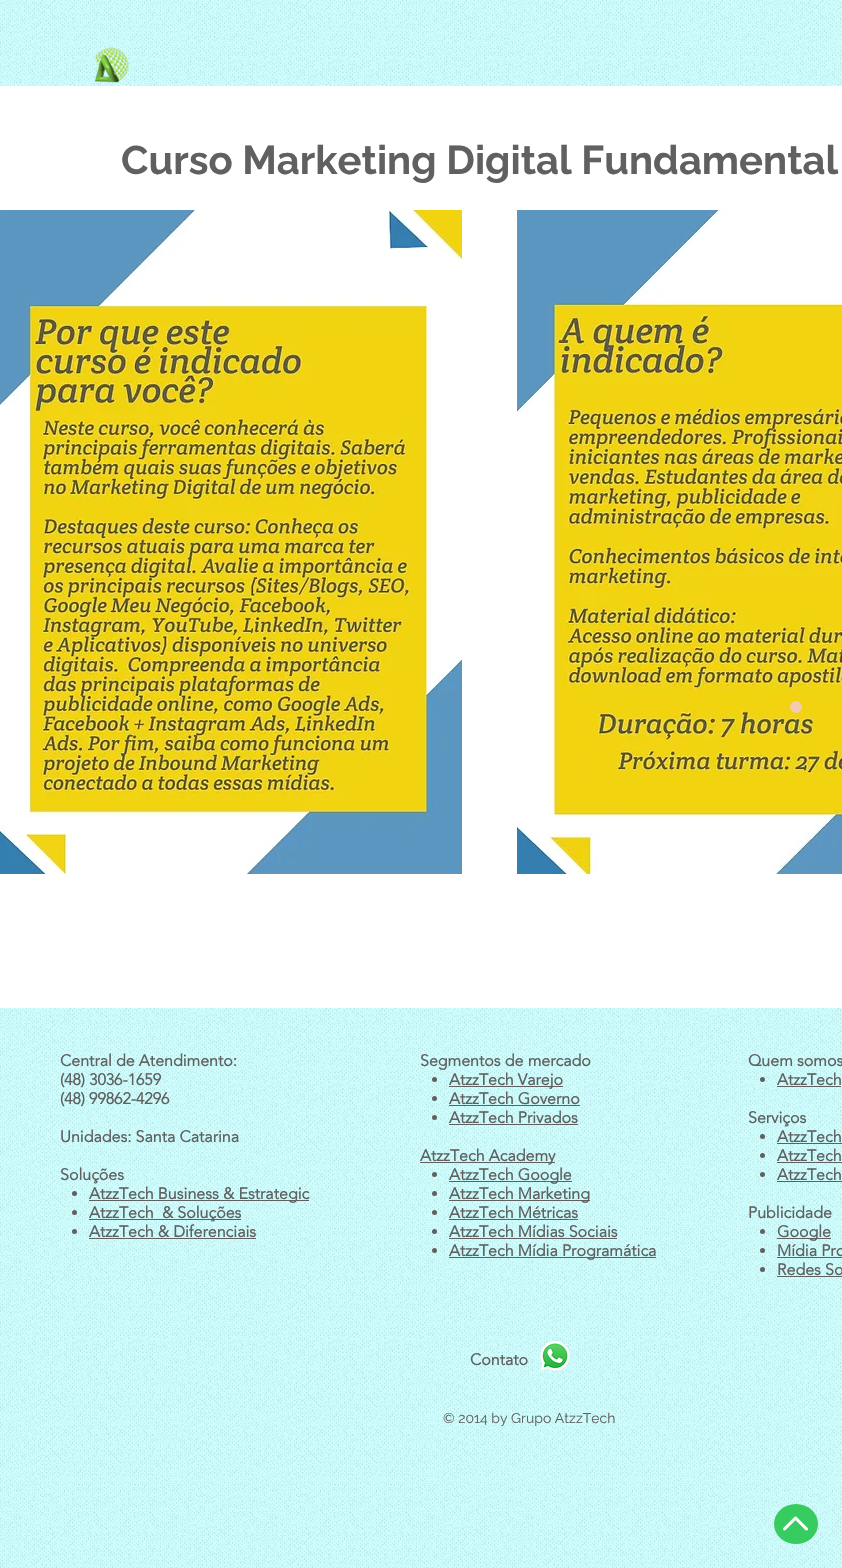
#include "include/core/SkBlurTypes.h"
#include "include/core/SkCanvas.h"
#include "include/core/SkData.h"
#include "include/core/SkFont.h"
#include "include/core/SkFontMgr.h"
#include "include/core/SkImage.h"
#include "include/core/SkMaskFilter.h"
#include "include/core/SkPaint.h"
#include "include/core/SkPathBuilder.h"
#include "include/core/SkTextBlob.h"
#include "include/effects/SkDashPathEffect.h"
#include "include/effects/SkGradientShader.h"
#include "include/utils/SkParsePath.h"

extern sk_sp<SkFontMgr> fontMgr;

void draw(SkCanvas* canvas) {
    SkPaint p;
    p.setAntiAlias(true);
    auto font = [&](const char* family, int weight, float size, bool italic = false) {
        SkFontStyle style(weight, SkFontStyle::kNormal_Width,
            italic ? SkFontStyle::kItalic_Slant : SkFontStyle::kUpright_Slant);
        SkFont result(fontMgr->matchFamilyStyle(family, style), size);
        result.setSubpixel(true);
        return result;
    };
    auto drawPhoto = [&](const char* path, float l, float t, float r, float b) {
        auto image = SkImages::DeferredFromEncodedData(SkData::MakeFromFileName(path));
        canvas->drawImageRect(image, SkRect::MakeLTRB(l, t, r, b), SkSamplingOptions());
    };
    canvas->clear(0xFFCFFFFF);
    drawPhoto("media/1.png", 0, 0, 842, 1568);
    drawPhoto("media/2.png", 94, 47, 129, 83);
    p.setColor(0xFFFFFFFF);
    canvas->drawRect(SkRect::MakeLTRB(0, 86, 842, 1008), p);
    drawPhoto("media/3.png", 517, 210, 842, 874);
    auto font1 = font("Raleway", 700, 40);
    p.setColor(0xFF606060);
    canvas->drawString("Curso Marketing Digital Fundamental", 121, 174, font1, p);
    drawPhoto("media/4.png", 0, 210, 462, 874);
    p.setColor(0xFFF6CCB0);
    canvas->drawCircle(796, 707, 5, p);
    p.setStyle(SkPaint::kStroke_Style);
    p.setStrokeWidth(2);
    canvas->drawCircle(796, 707, 5, p);
    p.setStyle(SkPaint::kFill_Style);
    p.setColor(0xFF37CC5F);
    canvas->drawOval(SkRect::MakeLTRB(774, 1504, 818, 1544), p);
    drawPhoto("media/5.png", 783, 1516, 808, 1531);
    auto font2 = font("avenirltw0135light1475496", 700, 16);
    p.setColor(0xFF606060);
    {
        const struct { const char* s; float x, y; } items[] = {
            {"Central de Atendimento:", 60, 1066},
            {"(48) 3036-1659", 60, 1085},
            {"(48) 99862-4296", 60, 1104},
            {"Unidades: Santa Catarina", 60, 1142},
            {"Soluções", 60, 1180},
        };
        for (auto [s, x, y] : items) {
            canvas->drawString(s, x, y, font2, p);
        }
    }
    canvas->drawCircle(74.5f, 1193.5f, 2.5f, p);
    canvas->drawRect(SkRect::MakeLTRB(89, 1200, 309, 1201), p);
    canvas->drawString("AtzzTech Business & Estrategic", 89, 1199, font2, p);
    canvas->drawCircle(74.5f, 1212.5f, 2.5f, p);
    canvas->drawRect(SkRect::MakeLTRB(89, 1219, 241, 1220), p);
    canvas->drawString("AtzzTech  & Soluções", 89, 1218, font2, p);
    canvas->drawCircle(74.5f, 1231.5f, 2.5f, p);
    canvas->drawString("AtzzTech & Diferenciais", 89, 1237, font2, p);
    canvas->drawRect(SkRect::MakeLTRB(89, 1238, 256, 1239), p);
    canvas->drawString("Segmentos de mercado", 420, 1066, font2, p);
    canvas->drawCircle(434.5f, 1079.5f, 2.5f, p);
    canvas->drawRect(SkRect::MakeLTRB(449, 1086, 563, 1087), p);
    canvas->drawString("AtzzTech Varejo", 449, 1085, font2, p);
    canvas->drawCircle(434.5f, 1098.5f, 2.5f, p);
    canvas->drawString("AtzzTech Governo", 449, 1104, font2, p);
    canvas->drawRect(SkRect::MakeLTRB(449, 1105, 580, 1106), p);
    canvas->drawCircle(434.5f, 1117.5f, 2.5f, p);
    canvas->drawString("AtzzTech Privados", 449, 1123, font2, p);
    canvas->drawRect(SkRect::MakeLTRB(449, 1124, 578, 1125), p);
    canvas->drawRect(SkRect::MakeLTRB(420, 1162, 555, 1163), p);
    canvas->drawString("AtzzTech Academy", 420, 1161, font2, p);
    canvas->drawCircle(434.5f, 1174.5f, 2.5f, p);
    canvas->drawRect(SkRect::MakeLTRB(449, 1181, 572, 1182), p);
    canvas->drawString("AtzzTech Google", 449, 1180, font2, p);
    canvas->drawCircle(434.5f, 1193.5f, 2.5f, p);
    canvas->drawRect(SkRect::MakeLTRB(449, 1200, 590, 1201), p);
    canvas->drawString("AtzzTech Marketing", 449, 1199, font2, p);
    canvas->drawCircle(434.5f, 1212.5f, 2.5f, p);
    canvas->drawString("AtzzTech Métricas", 449, 1218, font2, p);
    canvas->drawRect(SkRect::MakeLTRB(449, 1219, 578, 1220), p);
    canvas->drawCircle(434.5f, 1231.5f, 2.5f, p);
    canvas->drawString("AtzzTech Mídias Sociais", 449, 1237, font2, p);
    canvas->drawRect(SkRect::MakeLTRB(449, 1238, 617, 1239), p);
    canvas->drawCircle(434.5f, 1250.5f, 2.5f, p);
    canvas->drawRect(SkRect::MakeLTRB(449, 1257, 656, 1258), p);
    canvas->drawString("AtzzTech Mídia Programática", 449, 1256, font2, p);
    canvas->drawString("Quem somos", 748, 1066, font2, p);
    canvas->drawCircle(762.5f, 1079.5f, 2.5f, p);
    canvas->drawString("AtzzTech", 777, 1085, font2, p);
    canvas->drawRect(SkRect::MakeLTRB(777, 1086, 841, 1087), p);
    canvas->drawString("Serviços", 748, 1123, font2, p);
    canvas->drawCircle(762.5f, 1136.5f, 2.5f, p);
    canvas->drawString("AtzzTech", 777, 1142, font2, p);
    canvas->drawRect(SkRect::MakeLTRB(777, 1143, 842, 1144), p);
    canvas->drawCircle(762.5f, 1155.5f, 2.5f, p);
    canvas->drawString("AtzzTech", 777, 1161, font2, p);
    canvas->drawRect(SkRect::MakeLTRB(777, 1162, 842, 1163), p);
    canvas->drawCircle(762.5f, 1174.5f, 2.5f, p);
    canvas->drawString("AtzzTech", 777, 1180, font2, p);
    canvas->drawRect(SkRect::MakeLTRB(777, 1181, 842, 1182), p);
    canvas->drawString("Publicidade", 748, 1218, font2, p);
    canvas->drawCircle(762.5f, 1231.5f, 2.5f, p);
    canvas->drawRect(SkRect::MakeLTRB(777, 1238, 831, 1239), p);
    canvas->drawString("Google", 777, 1237, font2, p);
    canvas->drawCircle(762.5f, 1250.5f, 2.5f, p);
    canvas->drawString("Mídia Pro", 777, 1256, font2, p);
    canvas->drawRect(SkRect::MakeLTRB(777, 1257, 842, 1258), p);
    canvas->drawCircle(762.5f, 1269.5f, 2.5f, p);
    canvas->drawString("Redes So", 777, 1275, font2, p);
    canvas->drawRect(SkRect::MakeLTRB(777, 1276, 842, 1277), p);
    canvas->drawString("Contato", 470, 1365, font2, p);
    drawPhoto("media/6.png", 540, 1341, 570, 1371);
    auto font3 = font("Raleway", 400, 14);
    canvas->drawString("© 2014 by Grupo AtzzTech", 443, 1423, font3, p);
}
